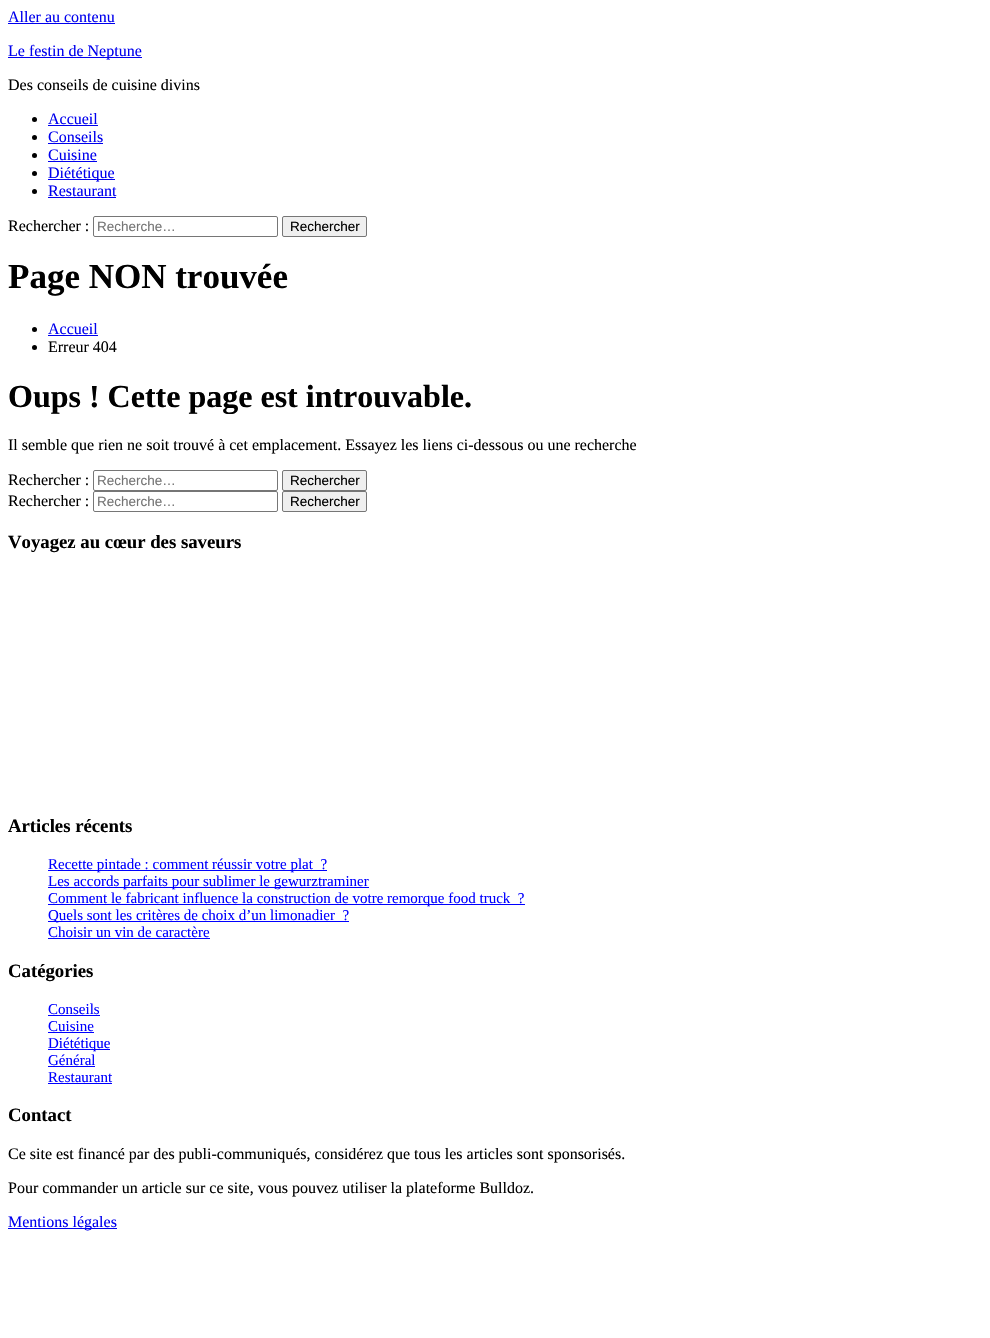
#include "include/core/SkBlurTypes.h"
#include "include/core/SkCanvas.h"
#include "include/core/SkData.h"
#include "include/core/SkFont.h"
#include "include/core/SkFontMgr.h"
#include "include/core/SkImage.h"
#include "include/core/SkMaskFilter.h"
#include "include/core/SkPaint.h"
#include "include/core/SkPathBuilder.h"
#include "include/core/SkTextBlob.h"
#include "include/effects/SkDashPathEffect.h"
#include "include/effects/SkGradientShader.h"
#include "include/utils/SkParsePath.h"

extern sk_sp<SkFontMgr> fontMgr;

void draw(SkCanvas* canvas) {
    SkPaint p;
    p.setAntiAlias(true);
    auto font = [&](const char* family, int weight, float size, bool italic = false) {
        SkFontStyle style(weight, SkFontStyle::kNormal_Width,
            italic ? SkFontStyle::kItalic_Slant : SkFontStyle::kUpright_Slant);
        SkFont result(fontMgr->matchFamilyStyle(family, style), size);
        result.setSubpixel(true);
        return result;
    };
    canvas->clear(0xFFFFFFFF);
    auto font1 = font("Liberation Serif", 400, 16);
    p.setColor(0xFF0000EE);
    canvas->drawString("Aller au contenu", 8, 22, font1, p);
    canvas->drawRect(SkRect::MakeLTRB(8, 23, 115, 24), p);
    canvas->drawRect(SkRect::MakeLTRB(8, 57, 142, 58), p);
    canvas->drawString("Le festin de Neptune", 8, 56, font1, p);
    p.setColor(0xFF000000);
    canvas->drawString("Des conseils de cuisine divins", 8, 90, font1, p);
    canvas->drawCircle(34.5f, 119.5f, 2.5f, p);
    p.setColor(0xFF0000EE);
    canvas->drawString("Accueil", 48, 124, font1, p);
    canvas->drawRect(SkRect::MakeLTRB(48, 125, 98, 126), p);
    p.setColor(0xFF000000);
    canvas->drawCircle(34.5f, 137.5f, 2.5f, p);
    p.setColor(0xFF0000EE);
    canvas->drawString("Conseils", 48, 142, font1, p);
    canvas->drawRect(SkRect::MakeLTRB(48, 143, 103, 144), p);
    p.setColor(0xFF000000);
    canvas->drawCircle(34.5f, 155.5f, 2.5f, p);
    p.setColor(0xFF0000EE);
    canvas->drawString("Cuisine", 48, 160, font1, p);
    canvas->drawRect(SkRect::MakeLTRB(48, 161, 97, 162), p);
    p.setColor(0xFF000000);
    canvas->drawCircle(34.5f, 173.5f, 2.5f, p);
    p.setColor(0xFF0000EE);
    canvas->drawRect(SkRect::MakeLTRB(48, 179, 115, 180), p);
    canvas->drawString("Diététique", 48, 178, font1, p);
    p.setColor(0xFF000000);
    canvas->drawCircle(34.5f, 191.5f, 2.5f, p);
    p.setColor(0xFF0000EE);
    canvas->drawString("Restaurant", 48, 196, font1, p);
    canvas->drawRect(SkRect::MakeLTRB(48, 197, 116, 198), p);
    p.setColor(0xFF000000);
    canvas->drawString("Rechercher :", 8, 231, font1, p);
    p.setStyle(SkPaint::kStroke_Style);
    p.setStrokeWidth(1);
    p.setColor(0xFF767676);
    canvas->drawRoundRect(SkRect::MakeLTRB(93.5f, 216.5f, 277.5f, 236.5f), 1.5f, 1.5f, p);
    auto font2 = font("Liberation Sans", 400, 13.5f);
    p.setStyle(SkPaint::kFill_Style);
    p.setColor(0xFF757575);
    canvas->drawString("Recherche…", 97, 231, font2, p);
    p.setColor(0xFFEFEFEF);
    canvas->drawRoundRect(SkRect::MakeLTRB(282.5f, 216.5f, 366.5f, 236.5f), 1.5f, 1.5f, p);
    p.setStyle(SkPaint::kStroke_Style);
    p.setColor(0xFF767676);
    canvas->drawRoundRect(SkRect::MakeLTRB(282.5f, 216.5f, 366.5f, 236.5f), 1.5f, 1.5f, p);
    p.setStyle(SkPaint::kFill_Style);
    p.setColor(0xFF000000);
    canvas->drawString("Rechercher", 290, 231, font2, p);
    auto font3 = font("Liberation Serif", 700, 35);
    canvas->drawString("Page NON trouvée", 8, 288, font3, p);
    canvas->drawCircle(34.5f, 329.5f, 2.5f, p);
    p.setColor(0xFF0000EE);
    canvas->drawString("Accueil", 48, 334, font1, p);
    canvas->drawRect(SkRect::MakeLTRB(48, 335, 98, 336), p);
    p.setColor(0xFF000000);
    canvas->drawCircle(34.5f, 347.5f, 2.5f, p);
    canvas->drawString("Erreur 404", 48, 352, font1, p);
    auto font4 = font("Liberation Serif", 700, 32);
    canvas->drawString("Oups ! Cette page est introuvable.", 8, 407, font4, p);
    canvas->drawString("Il semble que rien ne soit trouvé à cet emplacement. Essayez les liens ci-dessous ou une recherche", 8, 450, font1, p);
    canvas->drawString("Rechercher :", 8, 485, font1, p);
    p.setStyle(SkPaint::kStroke_Style);
    p.setColor(0xFF767676);
    canvas->drawRoundRect(SkRect::MakeLTRB(93.5f, 470.5f, 277.5f, 490.5f), 1.5f, 1.5f, p);
    p.setStyle(SkPaint::kFill_Style);
    p.setColor(0xFF757575);
    canvas->drawString("Recherche…", 97, 485, font2, p);
    p.setColor(0xFFEFEFEF);
    canvas->drawRoundRect(SkRect::MakeLTRB(282.5f, 470.5f, 366.5f, 490.5f), 1.5f, 1.5f, p);
    p.setStyle(SkPaint::kStroke_Style);
    p.setColor(0xFF767676);
    canvas->drawRoundRect(SkRect::MakeLTRB(282.5f, 470.5f, 366.5f, 490.5f), 1.5f, 1.5f, p);
    p.setStyle(SkPaint::kFill_Style);
    p.setColor(0xFF000000);
    canvas->drawString("Rechercher", 290, 485, font2, p);
    canvas->drawString("Rechercher :", 8, 506, font1, p);
    p.setStyle(SkPaint::kStroke_Style);
    p.setColor(0xFF767676);
    canvas->drawRoundRect(SkRect::MakeLTRB(93.5f, 491.5f, 277.5f, 511.5f), 1.5f, 1.5f, p);
    p.setStyle(SkPaint::kFill_Style);
    p.setColor(0xFF757575);
    canvas->drawString("Recherche…", 97, 506, font2, p);
    p.setColor(0xFFEFEFEF);
    canvas->drawRoundRect(SkRect::MakeLTRB(282.5f, 491.5f, 366.5f, 511.5f), 1.5f, 1.5f, p);
    p.setStyle(SkPaint::kStroke_Style);
    p.setColor(0xFF767676);
    canvas->drawRoundRect(SkRect::MakeLTRB(282.5f, 491.5f, 366.5f, 511.5f), 1.5f, 1.5f, p);
    p.setStyle(SkPaint::kFill_Style);
    p.setColor(0xFF000000);
    canvas->drawString("Rechercher", 290, 506, font2, p);
    auto font5 = font("Liberation Serif", 700, 18.75f);
    canvas->drawString("Voyagez au cœur des saveurs", 8, 548, font5, p);
    canvas->drawString("Articles récents", 8, 832, font5, p);
    p.setColor(0xFF0000FF);
    canvas->drawRect(SkRect::MakeLTRB(48, 870, 327, 871), p);
    auto font6 = font("Liberation Serif", 400, 15);
    canvas->drawString("Recette pintade : comment réussir votre plat  ?", 48, 869, font6, p);
    canvas->drawRect(SkRect::MakeLTRB(48, 887, 369, 888), p);
    canvas->drawString("Les accords parfaits pour sublimer le gewurztraminer", 48, 886, font6, p);
    canvas->drawRect(SkRect::MakeLTRB(48, 904, 525, 905), p);
    canvas->drawString("Comment le fabricant influence la construction de votre remorque food truck  ?", 48, 903, font6, p);
    canvas->drawRect(SkRect::MakeLTRB(48, 921, 349, 922), p);
    canvas->drawString("Quels sont les critères de choix d’un limonadier  ?", 48, 920, font6, p);
    canvas->drawString("Choisir un vin de caractère", 48, 937, font6, p);
    canvas->drawRect(SkRect::MakeLTRB(48, 938, 210, 939), p);
    p.setColor(0xFF000000);
    canvas->drawString("Catégories", 8, 977, font5, p);
    p.setColor(0xFF0000FF);
    canvas->drawString("Conseils", 48, 1014, font6, p);
    canvas->drawRect(SkRect::MakeLTRB(48, 1015, 100, 1016), p);
    canvas->drawString("Cuisine", 48, 1031, font6, p);
    canvas->drawRect(SkRect::MakeLTRB(48, 1032, 94, 1033), p);
    canvas->drawRect(SkRect::MakeLTRB(48, 1049, 110, 1050), p);
    canvas->drawString("Diététique", 48, 1048, font6, p);
    canvas->drawString("Général", 48, 1065, font6, p);
    canvas->drawRect(SkRect::MakeLTRB(48, 1066, 95, 1067), p);
    canvas->drawString("Restaurant", 48, 1082, font6, p);
    canvas->drawRect(SkRect::MakeLTRB(48, 1083, 112, 1084), p);
    p.setColor(0xFF000000);
    canvas->drawString("Contact", 8, 1121, font5, p);
    canvas->drawString("Ce site est financé par des publi-communiqués, considérez que tous les articles sont sponsorisés.", 8, 1159, font1, p);
    canvas->drawString("Pour commander un article sur ce site, vous pouvez utiliser la plateforme Bulldoz.", 8, 1193, font1, p);
    p.setColor(0xFF0000EE);
    canvas->drawRect(SkRect::MakeLTRB(8, 1228, 117, 1229), p);
    canvas->drawString("Mentions légales", 8, 1227, font1, p);
}
